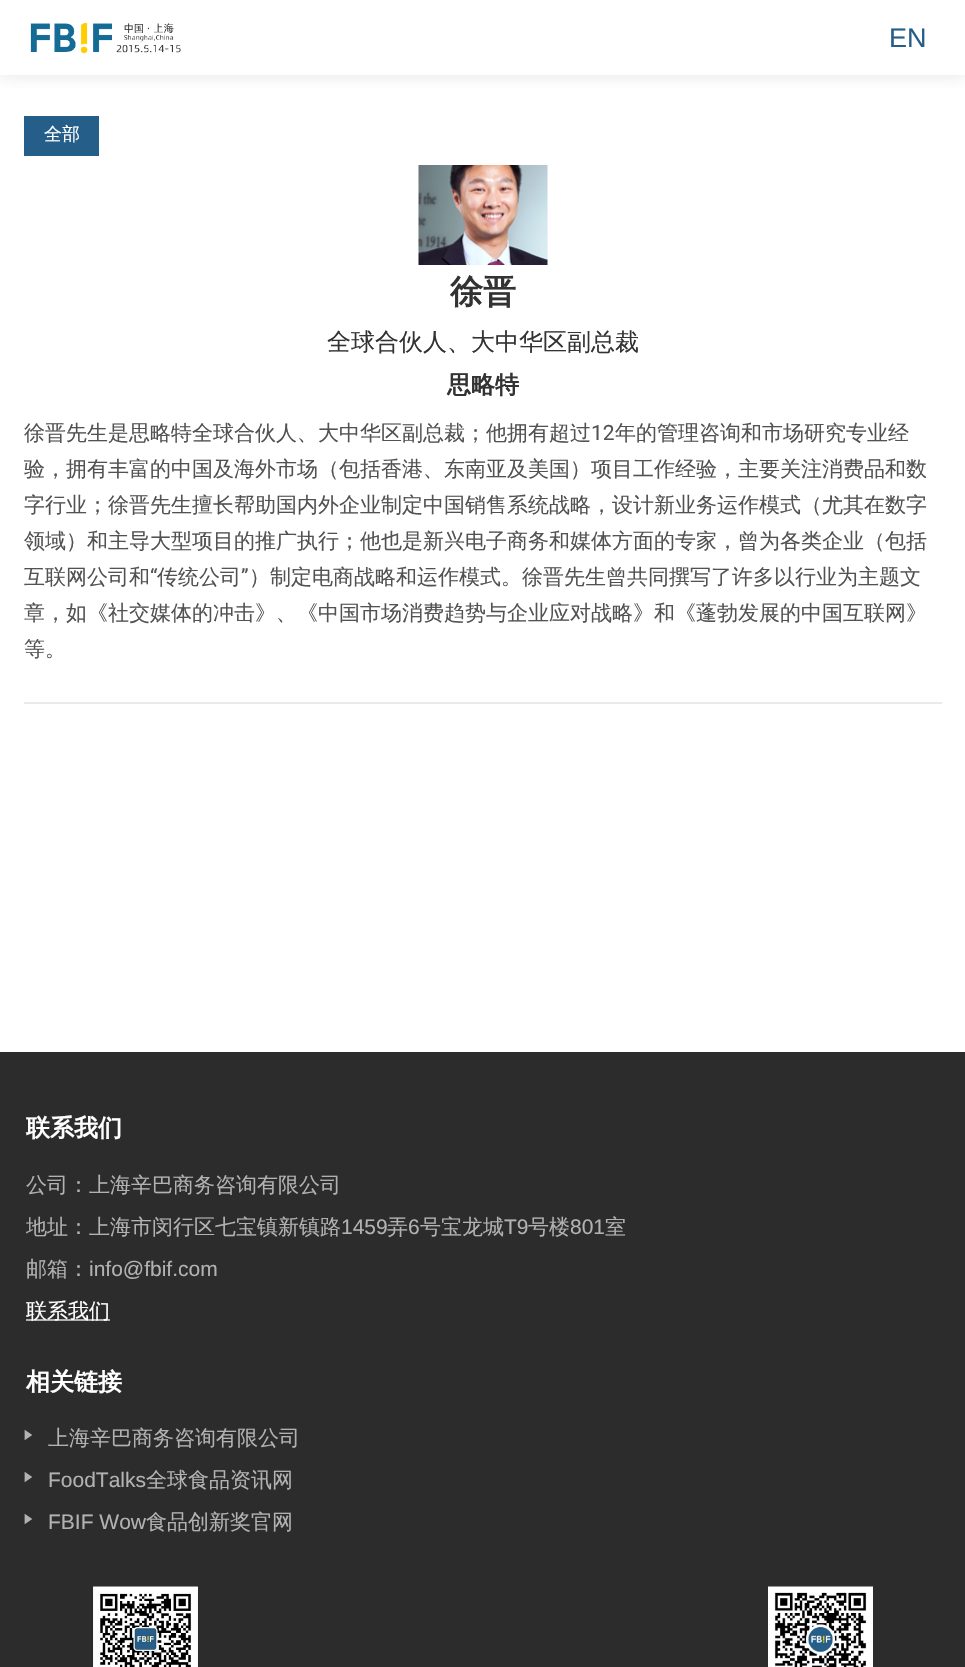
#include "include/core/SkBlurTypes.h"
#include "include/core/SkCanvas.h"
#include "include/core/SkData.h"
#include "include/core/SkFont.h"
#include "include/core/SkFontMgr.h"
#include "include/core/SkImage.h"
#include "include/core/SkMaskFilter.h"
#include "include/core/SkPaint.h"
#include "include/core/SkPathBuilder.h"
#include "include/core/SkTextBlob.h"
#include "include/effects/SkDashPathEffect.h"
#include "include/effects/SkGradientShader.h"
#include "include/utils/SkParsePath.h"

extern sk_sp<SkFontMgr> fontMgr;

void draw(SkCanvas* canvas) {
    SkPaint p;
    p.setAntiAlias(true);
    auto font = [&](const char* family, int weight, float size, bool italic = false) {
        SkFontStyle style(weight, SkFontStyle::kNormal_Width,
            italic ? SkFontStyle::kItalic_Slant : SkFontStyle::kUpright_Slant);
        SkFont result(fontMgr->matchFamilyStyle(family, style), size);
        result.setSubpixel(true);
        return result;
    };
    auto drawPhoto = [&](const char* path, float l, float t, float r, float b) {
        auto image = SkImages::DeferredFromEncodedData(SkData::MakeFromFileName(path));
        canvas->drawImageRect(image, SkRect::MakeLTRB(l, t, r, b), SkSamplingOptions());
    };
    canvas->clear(0xFFFFFFFF);
    canvas->save();
    canvas->clipRect(SkRect::MakeLTRB(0, 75, 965, 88));
    p.setColor(0x4DB0B3BF);
    p.setMaskFilter(SkMaskFilter::MakeBlur(kNormal_SkBlurStyle, 7.5f));
    canvas->drawRect(SkRect::MakeLTRB(0, 2, 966, 77), p);
    p.setMaskFilter(nullptr);
    canvas->restore();
    drawPhoto("media/1.png", 30, 23, 181, 54);
    auto font1 = font("Liberation Sans", 400, 27);
    p.setColor(0xFF255F89);
    canvas->drawString("EN", 889, 47, font1, p);
    canvas->drawRect(SkRect::MakeLTRB(24, 116, 99, 156), p);
    auto font2 = font("WenQuanYi Zen Hei", 500, 18);
    p.setColor(0xFFFFFFFF);
    canvas->drawString("全部", 44, 140, font2, p);
    drawPhoto("media/2.png", 418, 165, 548, 265);
    auto font3 = font("WenQuanYi Zen Hei", 700, 33);
    p.setColor(0xFF333333);
    canvas->drawString("徐晋", 450, 303, font3, p);
    auto font4 = font("WenQuanYi Zen Hei", 500, 24);
    canvas->drawString("全球合伙人、大中华区副总裁", 327, 350, font4, p);
    auto font5 = font("WenQuanYi Zen Hei", 700, 24);
    canvas->drawString("思略特", 447, 393, font5, p);
    auto font6 = font("WenQuanYi Zen Hei", 500, 21);
    p.setColor(0xFF525252);
    canvas->drawString("徐晋先生是思略特全球合伙人、大中华区副总裁；他拥有超过", 24, 440, font6, p);
    auto font7 = font("Roboto", 400, 21);
    canvas->drawString("12", 591, 440, font7, p);
    {
        const struct { const char* s; float x, y; } items[] = {
            {"年的管理咨询和市场研究专业经", 615, 440},
            {"验，拥有丰富的中国及海外市场（包括香港、东南亚及美国）项目工作经验，主要关注消费品和数", 24, 476},
            {"字行业；徐晋先生擅长帮助国内外企业制定中国销售系统战略，设计新业务运作模式（尤其在数字", 24, 512},
            {"领域）和主导大型项目的推广执行；他也是新兴电子商务和媒体方面的专家，曾为各类企业（包括", 24, 548},
            {"互联网公司和", 24, 584},
        };
        for (auto [s, x, y] : items) {
            canvas->drawString(s, x, y, font6, p);
        }
    }
    canvas->drawString("“", 150, 584, font7, p);
    canvas->drawString("传统公司", 157, 584, font6, p);
    canvas->drawString("”", 241, 584, font7, p);
    {
        const struct { const char* s; float x, y; } items[] = {
            {"）制定电商战略和运作模式。徐晋先生曾共同撰写了许多以行业为主题文", 249, 584},
            {"章，如《社交媒体的冲击》、《中国市场消费趋势与企业应对战略》和《蓬勃发展的中国互联网》", 24, 620},
            {"等。", 24, 656},
        };
        for (auto [s, x, y] : items) {
            canvas->drawString(s, x, y, font6, p);
        }
    }
    p.setColor(0xFFEAEAEA);
    canvas->drawRect(SkRect::MakeLTRB(24, 702, 942, 704), p);
    p.setColor(0xFF2C2C2C);
    canvas->drawRect(SkRect::MakeLTRB(0, 1052, 965, 1667), p);
    p.setColor(0xFFFFFFFF);
    canvas->drawString("联系我们", 26, 1136, font5, p);
    p.setColor(0xFFB2B2B2);
    canvas->drawString("公司：上海辛巴商务咨询有限公司", 26, 1192, font6, p);
    canvas->drawString("地址：上海市闵行区七宝镇新镇路", 26, 1234, font6, p);
    auto font8 = font("Liberation Sans", 400, 21);
    canvas->drawString("1459", 341, 1234, font8, p);
    canvas->drawString("弄", 387, 1234, font6, p);
    canvas->drawString("6", 408, 1234, font8, p);
    canvas->drawString("号宝龙城", 420, 1234, font6, p);
    canvas->drawString("T9", 504, 1234, font8, p);
    canvas->drawString("号楼", 528, 1234, font6, p);
    canvas->drawString("801", 570, 1234, font8, p);
    canvas->drawString("室", 605, 1234, font6, p);
    canvas->drawString("邮箱：", 26, 1276, font6, p);
    canvas->drawString("info@fbif.com", 89, 1276, font8, p);
    canvas->drawRect(SkRect::MakeLTRB(26, 1319, 110, 1321), p);
    p.setColor(0xFFFFFFFF);
    canvas->drawString("联系我们", 26, 1318, font6, p);
    canvas->drawString("相关链接", 26, 1390, font5, p);
    drawPhoto("media/3.png", 24, 1429, 33, 1441);
    p.setColor(0xFFB2B2B2);
    canvas->drawString("上海辛巴商务咨询有限公司", 48, 1445, font6, p);
    drawPhoto("media/3.png", 24, 1471, 33, 1483);
    canvas->drawString("FoodTalks", 48, 1487, font8, p);
    canvas->drawString("全球食品资讯网", 146, 1487, font6, p);
    drawPhoto("media/3.png", 24, 1513, 33, 1525);
    canvas->drawString("FBIF Wow", 48, 1529, font8, p);
    canvas->drawString("食品创新奖官网", 146, 1529, font6, p);
    drawPhoto("media/4.png", 93, 1586, 198, 1667);
    drawPhoto("media/5.png", 768, 1586, 873, 1667);
}
